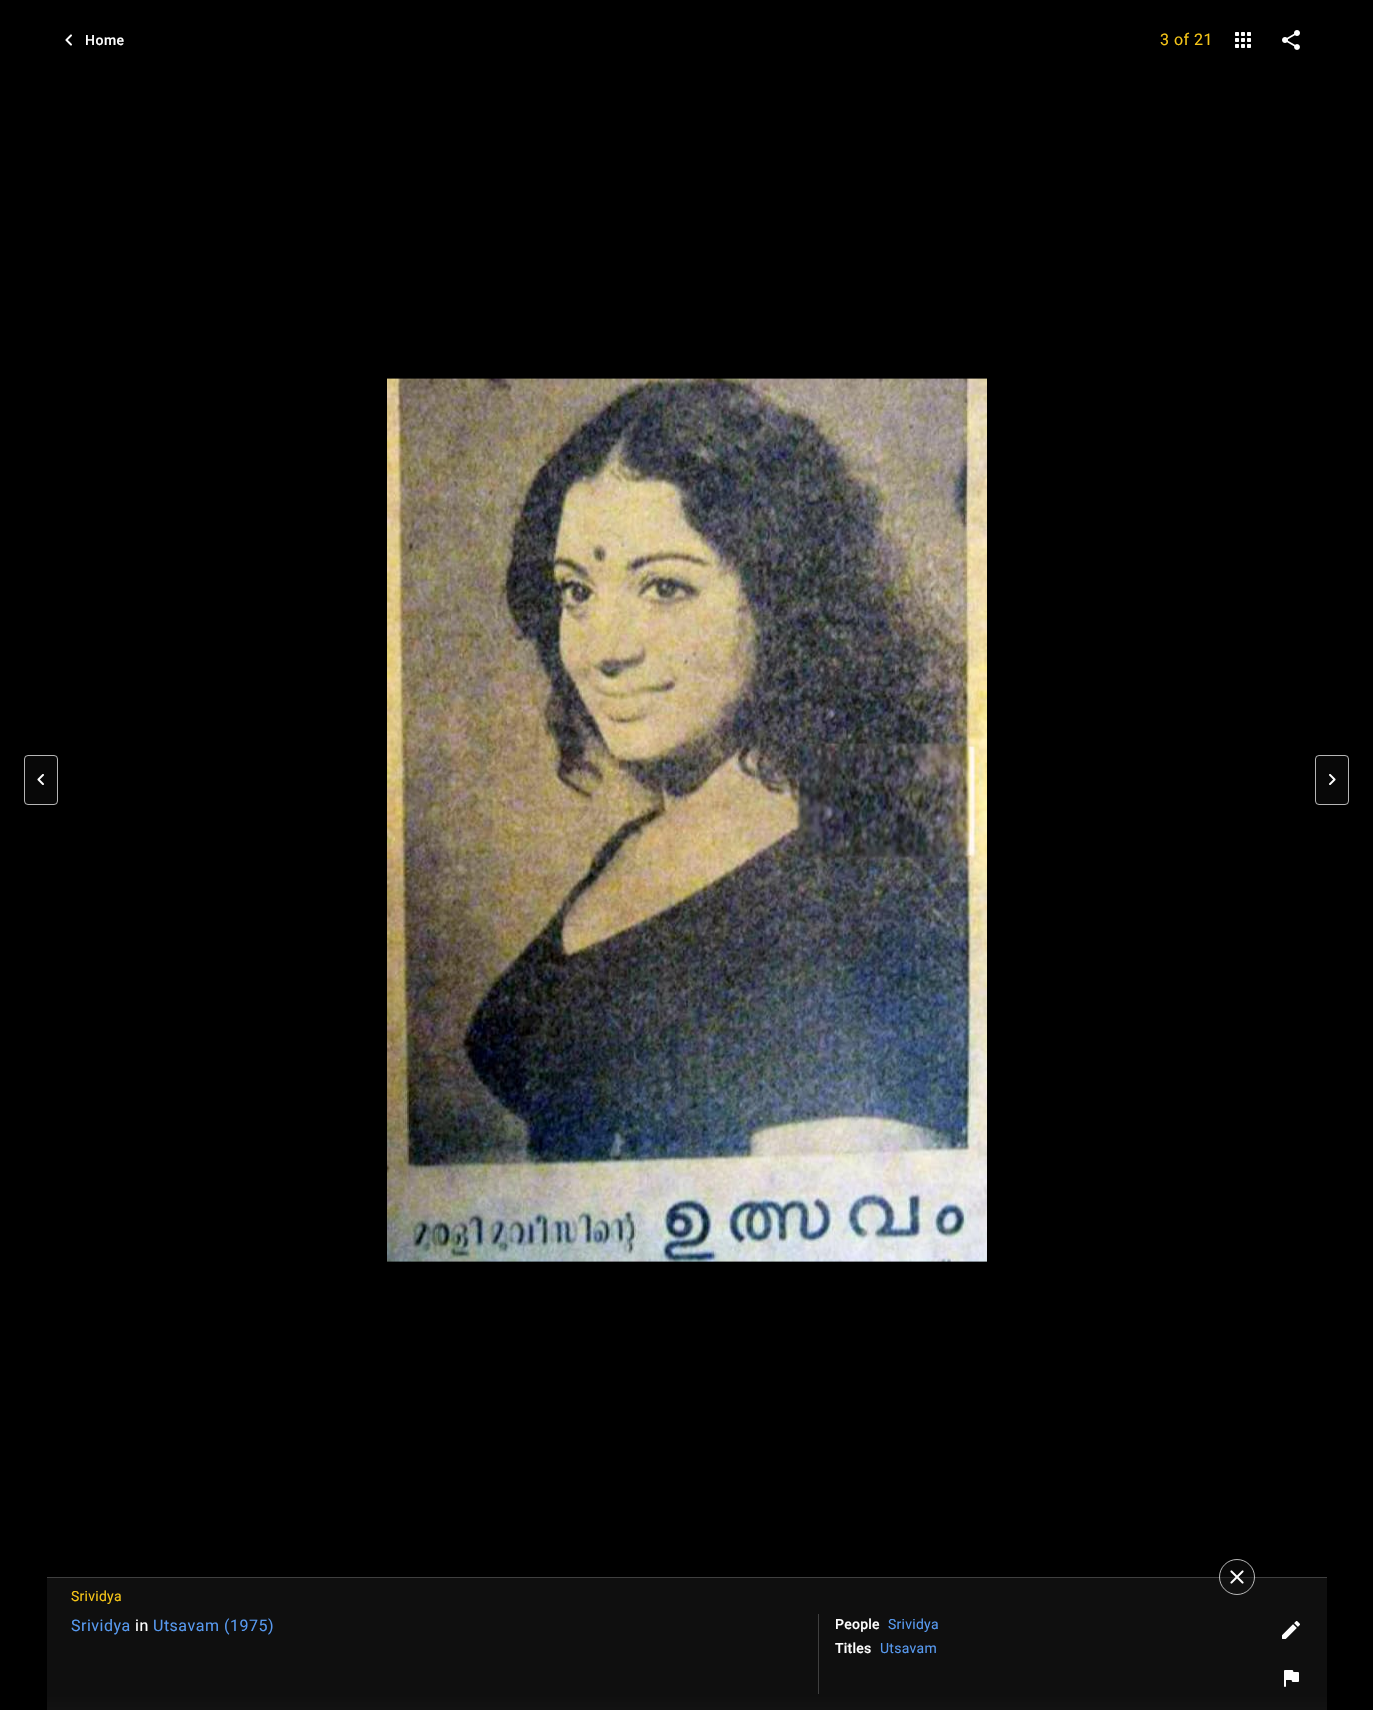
#include "include/core/SkBlurTypes.h"
#include "include/core/SkCanvas.h"
#include "include/core/SkData.h"
#include "include/core/SkFont.h"
#include "include/core/SkFontMgr.h"
#include "include/core/SkImage.h"
#include "include/core/SkMaskFilter.h"
#include "include/core/SkPaint.h"
#include "include/core/SkPathBuilder.h"
#include "include/core/SkTextBlob.h"
#include "include/effects/SkDashPathEffect.h"
#include "include/effects/SkGradientShader.h"
#include "include/utils/SkParsePath.h"

extern sk_sp<SkFontMgr> fontMgr;

void draw(SkCanvas* canvas) {
    SkPaint p;
    p.setAntiAlias(true);
    auto font = [&](const char* family, int weight, float size, bool italic = false) {
        SkFontStyle style(weight, SkFontStyle::kNormal_Width,
            italic ? SkFontStyle::kItalic_Slant : SkFontStyle::kUpright_Slant);
        SkFont result(fontMgr->matchFamilyStyle(family, style), size);
        result.setSubpixel(true);
        return result;
    };
    auto drawTracked = [&](const char* s, float x, float y, const SkFont& font, const SkPaint& ink, float letter, float word) {
        std::vector<SkGlyphID> glyphs(font.countText(s, strlen(s), SkTextEncoding::kUTF8));
        std::vector<float> xs(glyphs.size());
        font.textToGlyphs(s, strlen(s), SkTextEncoding::kUTF8, glyphs);
        font.getXPos(glyphs, xs, x);
        float extra = 0;
        for (size_t i = 0; i < glyphs.size(); i++) {
            xs[i] += extra;
            extra += letter + word * (glyphs[i] == font.unicharToGlyph(' '));
        }
        canvas->drawTextBlob(SkTextBlob::MakeFromPosHGlyphs(glyphs, xs, y, font), 0, 0, ink);
    };
    auto drawPhoto = [&](const char* path, float l, float t, float r, float b) {
        auto image = SkImages::DeferredFromEncodedData(SkData::MakeFromFileName(path));
        canvas->drawImageRect(image, SkRect::MakeLTRB(l, t, r, b), SkSamplingOptions());
    };
    canvas->clear(0xFF000000);
    drawPhoto("media/1.png", 65, 34, 72, 46);
    auto font1 = font("Roboto", 500, 14);
    p.setColor(0xFFFFFFFF);
    drawTracked("Home", 85, 45, font1, p, 0.5f, 0);
    auto font2 = font("Roboto", 400, 16);
    p.setColor(0xFFF5C518);
    drawTracked("3 of 21", 1160, 45, font2, p, 0.5f, 0);
    drawPhoto("media/2.png", 1235, 32, 1251, 48);
    drawPhoto("media/3.png", 1282, 30, 1300, 50);
    p.setColor(0xFF080808);
    canvas->drawRoundRect(SkRect::MakeLTRB(24, 755, 58, 805), 4, 4, p);
    p.setStyle(SkPaint::kStroke_Style);
    p.setStrokeWidth(1);
    p.setColor(0xB3FFFFFF);
    canvas->drawRoundRect(SkRect::MakeLTRB(24.5f, 755.5f, 57.5f, 804.5f), 3.5f, 3.5f, p);
    drawPhoto("media/4.png", 37, 774, 44, 785);
    drawPhoto("media/5.png", 387, 378, 987, 1262);
    p.setStyle(SkPaint::kFill_Style);
    p.setColor(0xFF080808);
    canvas->drawRoundRect(SkRect::MakeLTRB(1315, 755, 1349, 805), 4, 4, p);
    p.setStyle(SkPaint::kStroke_Style);
    p.setColor(0xB3FFFFFF);
    canvas->drawRoundRect(SkRect::MakeLTRB(1315.5f, 755.5f, 1348.5f, 804.5f), 3.5f, 3.5f, p);
    drawPhoto("media/6.png", 1329, 774, 1336, 785);
    p.setStyle(SkPaint::kFill_Style);
    p.setColor(0xFF0F0F0F);
    canvas->drawRect(SkRect::MakeLTRB(47, 1578, 1327, 1694), p);
    p.setColor(0xFF3F3F3F);
    canvas->drawRect(SkRect::MakeLTRB(47, 1577, 1327, 1578), p);
    p.setColor(0x73121212);
    canvas->drawCircle(1237, 1577, 18, p);
    p.setStyle(SkPaint::kStroke_Style);
    p.setColor(0xB3FFFFFF);
    canvas->drawCircle(1237, 1577, 17.5f, p);
    drawPhoto("media/7.png", 1230, 1570, 1244, 1584);
    auto font3 = font("Roboto", 400, 14);
    p.setStyle(SkPaint::kFill_Style);
    p.setColor(0xFFF5C518);
    drawTracked("Srividya", 71, 1601, font3, p, 0.25f, 0);
    p.setColor(0xFF5799EF);
    drawTracked("Srividya", 71, 1631, font2, p, 0.5f, 0);
    p.setColor(0xFFFFFFFF);
    drawTracked("in", 135, 1631, font2, p, 0.5f, 0);
    p.setColor(0xFF5799EF);
    drawTracked("Utsavam (1975)", 153, 1631, font2, p, 0.5f, 0);
    p.setColor(0xFF3F3F3F);
    canvas->drawRect(SkRect::MakeLTRB(818, 1614, 819, 1694), p);
    p.setColor(0xFFFFFFFF);
    drawTracked("People", 835, 1629, font1, p, 0.25f, 0);
    p.setColor(0xFF5799EF);
    drawTracked("Srividya", 888, 1629, font3, p, 0.25f, 0);
    p.setColor(0xFFFFFFFF);
    drawTracked("Titles", 835, 1653, font1, p, 0.25f, 0);
    p.setColor(0xFF5799EF);
    drawTracked("Utsavam", 880, 1653, font3, p, 0.25f, 0);
    drawPhoto("media/8.png", 1282, 1621, 1300, 1639);
    drawPhoto("media/9.png", 1284, 1670, 1299, 1687);
    {
        const SkColor colors[] = {0xFF121212, 0xFF0F0F0F};
        const float stops[] = {0, 1};
        const SkPoint ends[] = {{687, 1710}, {687, 1694}};
        p.setShader(SkGradientShader::MakeLinear(ends, colors, stops, 2, SkTileMode::kClamp));
        p.setAlpha(255);
    }
    canvas->drawRect(SkRect::MakeLTRB(47, 1694, 1327, 1710), p);
}
